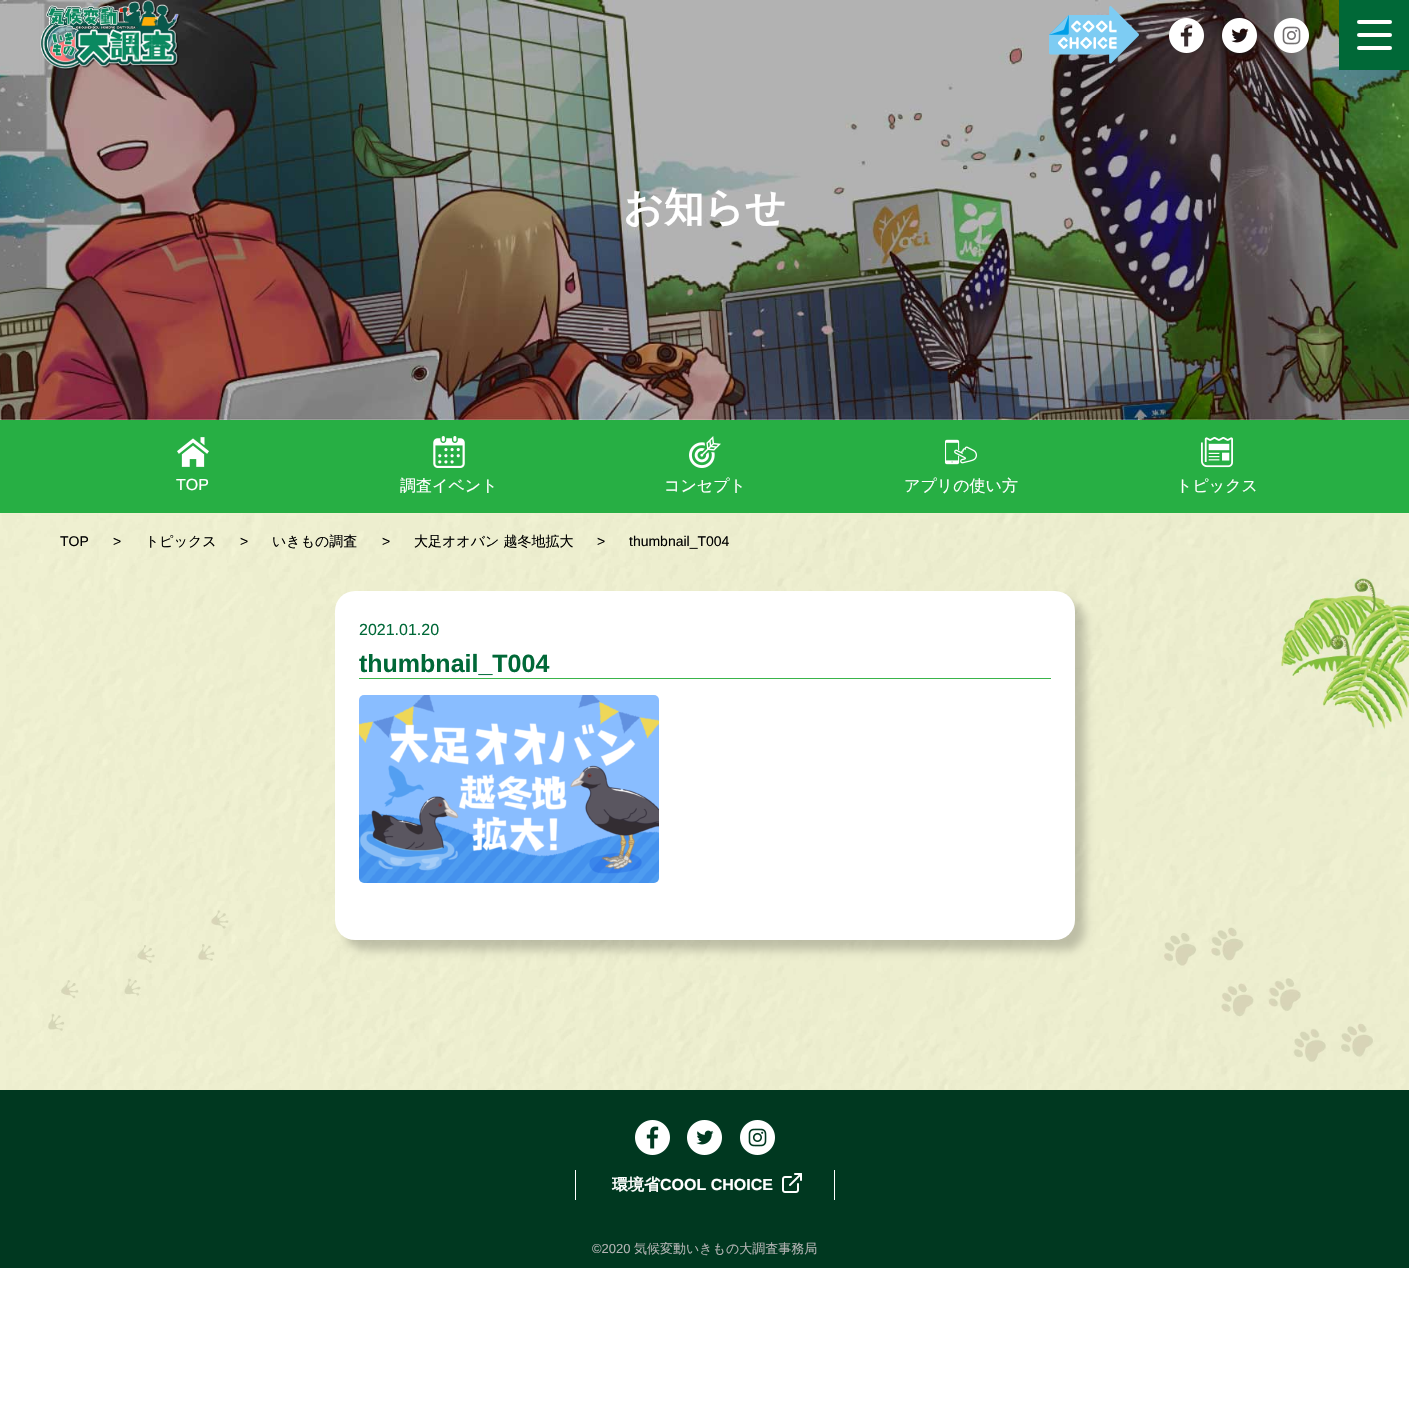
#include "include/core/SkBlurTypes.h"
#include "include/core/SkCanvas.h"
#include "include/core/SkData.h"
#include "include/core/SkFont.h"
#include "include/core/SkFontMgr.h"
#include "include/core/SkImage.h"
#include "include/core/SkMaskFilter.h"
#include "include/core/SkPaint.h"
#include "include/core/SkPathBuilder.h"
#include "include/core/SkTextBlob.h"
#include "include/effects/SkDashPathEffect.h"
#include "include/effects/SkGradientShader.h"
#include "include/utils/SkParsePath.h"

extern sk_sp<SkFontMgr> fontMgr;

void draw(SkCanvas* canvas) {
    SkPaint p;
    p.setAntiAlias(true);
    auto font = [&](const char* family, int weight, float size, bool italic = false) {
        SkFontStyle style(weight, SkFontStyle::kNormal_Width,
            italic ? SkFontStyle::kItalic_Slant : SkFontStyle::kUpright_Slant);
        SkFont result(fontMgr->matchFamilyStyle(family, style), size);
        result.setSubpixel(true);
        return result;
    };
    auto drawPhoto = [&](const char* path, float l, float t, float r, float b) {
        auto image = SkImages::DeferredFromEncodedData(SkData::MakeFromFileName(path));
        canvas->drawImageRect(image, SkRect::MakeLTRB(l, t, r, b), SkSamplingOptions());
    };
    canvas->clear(0xFFFFFFFF);
    drawPhoto("media/6.png", 0, 0, 1409, 420);
    drawPhoto("media/1.png", 40, 0, 180, 70);
    drawPhoto("media/2.png", 1049, 6, 1139, 64);
    drawPhoto("media/3.png", 1169, 18, 1204, 53);
    drawPhoto("media/4.png", 1222, 18, 1257, 53);
    drawPhoto("media/5.png", 1274, 18, 1309, 53);
    p.setColor(0xFF006837);
    canvas->drawRect(SkRect::MakeLTRB(1339, 0, 1409, 70), p);
    p.setColor(0xFFFFFFFF);
    canvas->drawRoundRect(SkRect::MakeLTRB(1357, 20, 1392, 24), 2, 2, p);
    canvas->drawRoundRect(SkRect::MakeLTRB(1357, 33, 1392, 37), 2, 2, p);
    canvas->drawRoundRect(SkRect::MakeLTRB(1357, 46, 1392, 50), 2, 2, p);
    auto font1 = font("WenQuanYi Zen Hei", 700, 40);
    canvas->drawString("お知らせ", 623, 221, font1, p);
    p.setColor(0xFF27AF44);
    canvas->drawRect(SkRect::MakeLTRB(0, 420, 1409, 513), p);
    drawPhoto("media/7.png", 177, 437, 209, 467);
    auto font2 = font("Liberation Sans", 400, 16);
    p.setColor(0xFFFFFFFF);
    canvas->drawString("TOP", 176, 490, font2, p);
    drawPhoto("media/8.png", 433, 436, 465, 468);
    auto font3 = font("WenQuanYi Zen Hei", 500, 16);
    canvas->drawString("調査イベント", 400, 491, font3, p);
    drawPhoto("media/9.png", 689, 436, 721, 468);
    canvas->drawString("コンセプト", 664, 491, font3, p);
    drawPhoto("media/10.png", 945, 439, 977, 465);
    canvas->drawString("アプリの使い方", 904, 491, font3, p);
    drawPhoto("media/11.png", 1201, 436, 1233, 468);
    canvas->drawString("トピックス", 1176, 491, font3, p);
    drawPhoto("media/12.png", 0, 513, 1409, 1090);
    auto font4 = font("Liberation Sans", 400, 14);
    p.setColor(0xFF000000);
    canvas->drawString("TOP", 60, 546, font4, p);
    canvas->drawString(">", 113, 546, font4, p);
    auto font5 = font("WenQuanYi Zen Hei", 500, 14);
    canvas->drawString("トピックス", 145, 546, font5, p);
    canvas->drawString(">", 240, 546, font4, p);
    canvas->drawString("いきもの調査", 272, 546, font5, p);
    canvas->drawString(">", 382, 546, font4, p);
    canvas->drawString("大足オオバン 越冬地拡大", 414, 546, font5, p);
    canvas->drawString(">", 597, 546, font4, p);
    canvas->drawString("thumbnail_T004", 629, 546, font4, p);
    p.setColor(0x33000000);
    p.setMaskFilter(SkMaskFilter::MakeBlur(kNormal_SkBlurStyle, 5));
    canvas->drawRoundRect(SkRect::MakeLTRB(345, 601, 1085, 950), 20, 20, p);
    p.setMaskFilter(nullptr);
    p.setColor(0xFFFFFFFF);
    canvas->drawRoundRect(SkRect::MakeLTRB(335, 591, 1075, 940), 20, 20, p);
    p.setColor(0xFF006837);
    canvas->drawString("2021.01.20", 359, 635, font2, p);
    p.setColor(0xFF39B54A);
    canvas->drawRect(SkRect::MakeLTRB(359, 678, 1051, 679), p);
    auto font6 = font("Liberation Sans", 700, 25);
    p.setColor(0xFF006837);
    canvas->drawString("thumbnail_T004", 359, 672, font6, p);
    drawPhoto("media/13.png", 359, 695, 659, 883);
    p.setColor(0xFF003820);
    canvas->drawRect(SkRect::MakeLTRB(0, 1090, 1409, 1268), p);
    drawPhoto("media/14.png", 635, 1120, 670, 1155);
    drawPhoto("media/15.png", 687, 1120, 722, 1155);
    drawPhoto("media/16.png", 740, 1120, 775, 1155);
    p.setColor(0xFFFFFFFF);
    canvas->drawRect(SkRect::MakeLTRB(834, 1170, 835, 1200), p);
    canvas->drawRect(SkRect::MakeLTRB(575, 1170, 576, 1200), p);
    auto font7 = font("WenQuanYi Zen Hei", 700, 16);
    canvas->drawString("環境省", 612, 1190, font7, p);
    auto font8 = font("Liberation Sans", 700, 16);
    canvas->drawString("COOL CHOICE", 660, 1190, font8, p);
    drawPhoto("media/17.png", 782, 1173, 802, 1193);
    auto font9 = font("Liberation Sans", 400, 13);
    p.setColor(0xFFB3B3B3);
    canvas->drawString("©2020", 592, 1253, font9, p);
    auto font10 = font("WenQuanYi Zen Hei", 500, 13);
    canvas->drawString("気候変動いきもの大調査事務局", 634, 1253, font10, p);
}
